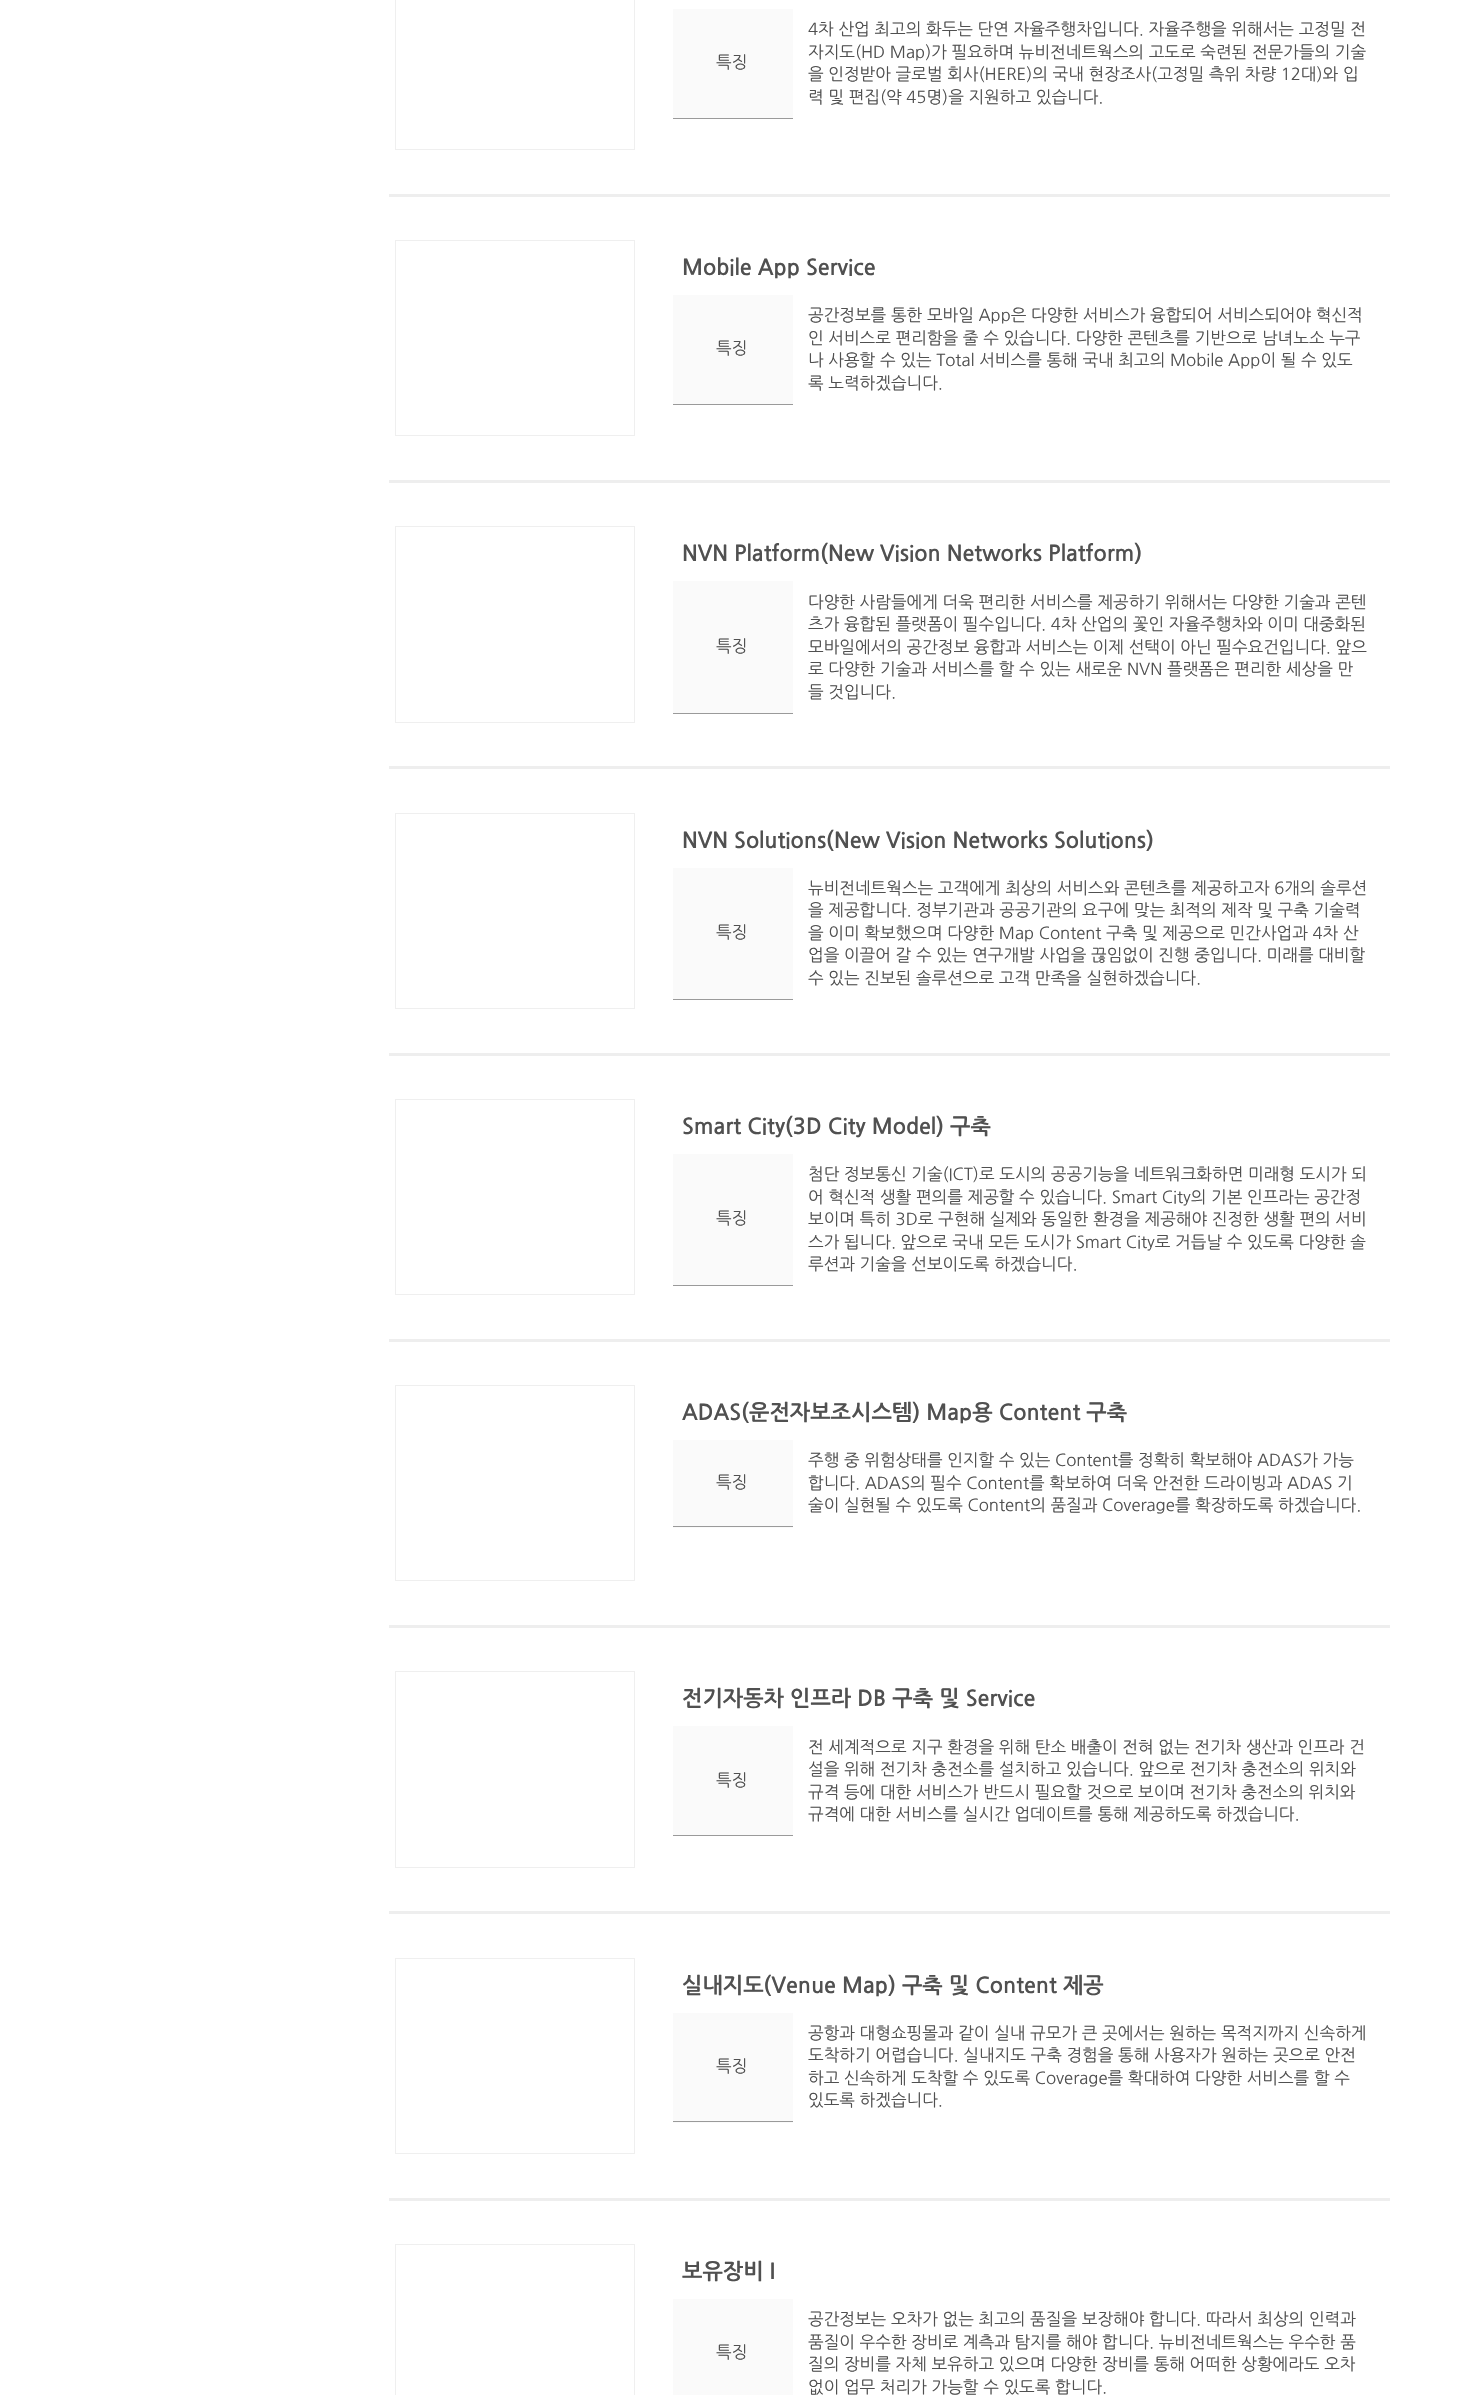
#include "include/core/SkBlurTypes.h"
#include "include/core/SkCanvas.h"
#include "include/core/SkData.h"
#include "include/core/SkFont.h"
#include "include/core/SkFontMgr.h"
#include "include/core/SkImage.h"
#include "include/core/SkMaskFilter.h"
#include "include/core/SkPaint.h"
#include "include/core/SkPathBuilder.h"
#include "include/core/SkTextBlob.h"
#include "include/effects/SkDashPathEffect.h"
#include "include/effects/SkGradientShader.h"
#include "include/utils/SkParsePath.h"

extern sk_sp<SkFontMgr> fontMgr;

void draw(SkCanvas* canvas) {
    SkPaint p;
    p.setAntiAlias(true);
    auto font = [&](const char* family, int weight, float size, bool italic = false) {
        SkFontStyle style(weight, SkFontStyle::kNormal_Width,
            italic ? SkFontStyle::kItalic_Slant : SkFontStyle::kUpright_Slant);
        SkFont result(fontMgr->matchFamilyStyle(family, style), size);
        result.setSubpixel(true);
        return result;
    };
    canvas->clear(0xFFFFFFFF);
    p.setColor(0xFFEEEEEE);
    canvas->drawRect(SkRect::MakeLTRB(389, 194, 1390, 197), p);
    p.setStyle(SkPaint::kStroke_Style);
    p.setStrokeWidth(1);
    p.setColor(0xFFEFEFEF);
    canvas->drawRect(SkRect::MakeLTRB(395.5f, -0.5f, 634.5f, 149.5f), p);
    p.setStyle(SkPaint::kFill_Style);
    p.setColor(0xFFFAFAFA);
    canvas->drawRect(SkRect::MakeLTRB(673, 9, 793, 118), p);
    p.setColor(0xFF9A9A9A);
    canvas->drawRect(SkRect::MakeLTRB(673, 118, 793, 119), p);
    auto font1 = font("NanumGothic", 400, 16.65f);
    p.setColor(0xFF505050);
    {
        const struct { const char* s; float x, y; } items[] = {
            {"특징", 716, 68},
            {"4차 산업 최고의 화두는 단연 자율주행차입니다. 자율주행을 위해서는 고정밀 전", 808, 35},
            {"자지도(HD Map)가 필요하며 뉴비전네트웍스의 고도로 숙련된 전문가들의 기술", 808, 58},
            {"을 인정받아 글로벌 회사(HERE)의 국내 현장조사(고정밀 측위 차량 12대)와 입", 808, 80},
            {"력 및 편집(약 45명)을 지원하고 있습니다.", 808, 103},
        };
        for (auto [s, x, y] : items) {
            canvas->drawString(s, x, y, font1, p);
        }
    }
    p.setColor(0xFFEEEEEE);
    canvas->drawRect(SkRect::MakeLTRB(389, 480, 1390, 483), p);
    p.setStyle(SkPaint::kStroke_Style);
    p.setColor(0xFFEFEFEF);
    canvas->drawRect(SkRect::MakeLTRB(395.5f, 240.5f, 634.5f, 435.5f), p);
    auto font2 = font("NanumGothic", 700, 21.7f);
    p.setStyle(SkPaint::kFill_Style);
    p.setColor(0xFF505050);
    canvas->drawString("Mobile App Service", 682, 275, font2, p);
    p.setColor(0xFFFAFAFA);
    canvas->drawRect(SkRect::MakeLTRB(673, 295, 793, 404), p);
    p.setColor(0xFF9A9A9A);
    canvas->drawRect(SkRect::MakeLTRB(673, 404, 793, 405), p);
    p.setColor(0xFF505050);
    {
        const struct { const char* s; float x, y; } items[] = {
            {"특징", 716, 354},
            {"공간정보를 통한 모바일 App은 다양한 서비스가 융합되어 서비스되어야 혁신적", 808, 321},
            {"인 서비스로 편리함을 줄 수 있습니다. 다양한 콘텐츠를 기반으로 남녀노소 누구", 808, 344},
            {"나 사용할 수 있는 Total 서비스를 통해 국내 최고의 Mobile App이 될 수 있도", 808, 366},
            {"록 노력하겠습니다.", 808, 389},
        };
        for (auto [s, x, y] : items) {
            canvas->drawString(s, x, y, font1, p);
        }
    }
    p.setColor(0xFFEEEEEE);
    canvas->drawRect(SkRect::MakeLTRB(389, 766, 1390, 769), p);
    p.setStyle(SkPaint::kStroke_Style);
    p.setColor(0xFFEFEFEF);
    canvas->drawRect(SkRect::MakeLTRB(395.5f, 526.5f, 634.5f, 722.5f), p);
    p.setStyle(SkPaint::kFill_Style);
    p.setColor(0xFF505050);
    canvas->drawString("NVN Platform(New Vision Networks Platform)", 682, 561, font2, p);
    p.setColor(0xFFFAFAFA);
    canvas->drawRect(SkRect::MakeLTRB(673, 581, 793, 713), p);
    p.setColor(0xFF9A9A9A);
    canvas->drawRect(SkRect::MakeLTRB(673, 713, 793, 714), p);
    p.setColor(0xFF505050);
    {
        const struct { const char* s; float x, y; } items[] = {
            {"특징", 716, 652},
            {"다양한 사람들에게 더욱 편리한 서비스를 제공하기 위해서는 다양한 기술과 콘텐", 808, 608},
            {"츠가 융합된 플랫폼이 필수입니다. 4차 산업의 꽃인 자율주행차와 이미 대중화된", 808, 630},
            {"모바일에서의 공간정보 융합과 서비스는 이제 선택이 아닌 필수요건입니다. 앞으", 808, 653},
            {"로 다양한 기술과 서비스를 할 수 있는 새로운 NVN 플랫폼은 편리한 세상을 만", 808, 675},
            {"들 것입니다.", 808, 698},
        };
        for (auto [s, x, y] : items) {
            canvas->drawString(s, x, y, font1, p);
        }
    }
    p.setColor(0xFFEEEEEE);
    canvas->drawRect(SkRect::MakeLTRB(389, 1053, 1390, 1056), p);
    p.setStyle(SkPaint::kStroke_Style);
    p.setColor(0xFFEFEFEF);
    canvas->drawRect(SkRect::MakeLTRB(395.5f, 813.5f, 634.5f, 1008.5f), p);
    p.setStyle(SkPaint::kFill_Style);
    p.setColor(0xFF505050);
    canvas->drawString("NVN Solutions(New Vision Networks Solutions)", 682, 848, font2, p);
    p.setColor(0xFFFAFAFA);
    canvas->drawRect(SkRect::MakeLTRB(673, 868, 793, 999), p);
    p.setColor(0xFF9A9A9A);
    canvas->drawRect(SkRect::MakeLTRB(673, 999, 793, 1000), p);
    p.setColor(0xFF505050);
    {
        const struct { const char* s; float x, y; } items[] = {
            {"특징", 716, 938},
            {"뉴비전네트웍스는 고객에게 최상의 서비스와 콘텐츠를 제공하고자 6개의 솔루션", 808, 894},
            {"을 제공합니다. 정부기관과 공공기관의 요구에 맞는 최적의 제작 및 구축 기술력", 808, 916},
            {"을 이미 확보했으며 다양한 Map Content 구축 및 제공으로 민간사업과 4차 산", 808, 939},
            {"업을 이끌어 갈 수 있는 연구개발 사업을 끊임없이 진행 중입니다. 미래를 대비할", 808, 961},
            {"수 있는 진보된 솔루션으로 고객 만족을 실현하겠습니다.", 808, 984},
        };
        for (auto [s, x, y] : items) {
            canvas->drawString(s, x, y, font1, p);
        }
    }
    p.setColor(0xFFEEEEEE);
    canvas->drawRect(SkRect::MakeLTRB(389, 1339, 1390, 1342), p);
    p.setStyle(SkPaint::kStroke_Style);
    p.setColor(0xFFEFEFEF);
    canvas->drawRect(SkRect::MakeLTRB(395.5f, 1099.5f, 634.5f, 1294.5f), p);
    p.setStyle(SkPaint::kFill_Style);
    p.setColor(0xFF505050);
    canvas->drawString("Smart City(3D City Model) 구축", 682, 1134, font2, p);
    p.setColor(0xFFFAFAFA);
    canvas->drawRect(SkRect::MakeLTRB(673, 1154, 793, 1285), p);
    p.setColor(0xFF9A9A9A);
    canvas->drawRect(SkRect::MakeLTRB(673, 1285, 793, 1286), p);
    p.setColor(0xFF505050);
    {
        const struct { const char* s; float x, y; } items[] = {
            {"특징", 716, 1224},
            {"첨단 정보통신 기술(ICT)로 도시의 공공기능을 네트워크화하면 미래형 도시가 되", 808, 1180},
            {"어 혁신적 생활 편의를 제공할 수 있습니다. Smart City의 기본 인프라는 공간정", 808, 1203},
            {"보이며 특히 3D로 구현해 실제와 동일한 환경을 제공해야 진정한 생활 편의 서비", 808, 1225},
            {"스가 됩니다. 앞으로 국내 모든 도시가 Smart City로 거듭날 수 있도록 다양한 솔", 808, 1248},
            {"루션과 기술을 선보이도록 하겠습니다.", 808, 1270},
        };
        for (auto [s, x, y] : items) {
            canvas->drawString(s, x, y, font1, p);
        }
    }
    p.setColor(0xFFEEEEEE);
    canvas->drawRect(SkRect::MakeLTRB(389, 1625, 1390, 1628), p);
    p.setStyle(SkPaint::kStroke_Style);
    p.setColor(0xFFEFEFEF);
    canvas->drawRect(SkRect::MakeLTRB(395.5f, 1385.5f, 634.5f, 1580.5f), p);
    p.setStyle(SkPaint::kFill_Style);
    p.setColor(0xFF505050);
    canvas->drawString("ADAS(운전자보조시스템) Map용 Content 구축", 682, 1420, font2, p);
    p.setColor(0xFFFAFAFA);
    canvas->drawRect(SkRect::MakeLTRB(673, 1440, 793, 1528), p);
    p.setColor(0xFF9A9A9A);
    canvas->drawRect(SkRect::MakeLTRB(673, 1526, 793, 1527), p);
    p.setColor(0xFF505050);
    {
        const struct { const char* s; float x, y; } items[] = {
            {"특징", 716, 1488},
            {"주행 중 위험상태를 인지할 수 있는 Content를 정확히 확보해야 ADAS가 가능", 808, 1466},
            {"합니다. ADAS의 필수 Content를 확보하여 더욱 안전한 드라이빙과 ADAS 기", 808, 1489},
            {"술이 실현될 수 있도록 Content의 품질과 Coverage를 확장하도록 하겠습니다.", 808, 1511},
        };
        for (auto [s, x, y] : items) {
            canvas->drawString(s, x, y, font1, p);
        }
    }
    p.setColor(0xFFEEEEEE);
    canvas->drawRect(SkRect::MakeLTRB(389, 1911, 1390, 1914), p);
    p.setStyle(SkPaint::kStroke_Style);
    p.setColor(0xFFEFEFEF);
    canvas->drawRect(SkRect::MakeLTRB(395.5f, 1671.5f, 634.5f, 1867.5f), p);
    p.setStyle(SkPaint::kFill_Style);
    p.setColor(0xFF505050);
    canvas->drawString("전기자동차 인프라 DB 구축 및 Service", 682, 1706, font2, p);
    p.setColor(0xFFFAFAFA);
    canvas->drawRect(SkRect::MakeLTRB(673, 1726, 793, 1835), p);
    p.setColor(0xFF9A9A9A);
    canvas->drawRect(SkRect::MakeLTRB(673, 1835, 793, 1836), p);
    p.setColor(0xFF505050);
    {
        const struct { const char* s; float x, y; } items[] = {
            {"특징", 716, 1786},
            {"전 세계적으로 지구 환경을 위해 탄소 배출이 전혀 없는 전기차 생산과 인프라 건", 808, 1753},
            {"설을 위해 전기차 충전소를 설치하고 있습니다. 앞으로 전기차 충전소의 위치와", 808, 1775},
            {"규격 등에 대한 서비스가 반드시 필요할 것으로 보이며 전기차 충전소의 위치와", 808, 1798},
            {"규격에 대한 서비스를 실시간 업데이트를 통해 제공하도록 하겠습니다.", 808, 1820},
        };
        for (auto [s, x, y] : items) {
            canvas->drawString(s, x, y, font1, p);
        }
    }
    p.setColor(0xFFEEEEEE);
    canvas->drawRect(SkRect::MakeLTRB(389, 2198, 1390, 2201), p);
    p.setStyle(SkPaint::kStroke_Style);
    p.setColor(0xFFEFEFEF);
    canvas->drawRect(SkRect::MakeLTRB(395.5f, 1958.5f, 634.5f, 2153.5f), p);
    p.setStyle(SkPaint::kFill_Style);
    p.setColor(0xFF505050);
    canvas->drawString("실내지도(Venue Map) 구축 및 Content 제공", 682, 1993, font2, p);
    p.setColor(0xFFFAFAFA);
    canvas->drawRect(SkRect::MakeLTRB(673, 2013, 793, 2123), p);
    p.setColor(0xFF9A9A9A);
    canvas->drawRect(SkRect::MakeLTRB(673, 2121, 793, 2122), p);
    p.setColor(0xFF505050);
    {
        const struct { const char* s; float x, y; } items[] = {
            {"특징", 716, 2072},
            {"공항과 대형쇼핑몰과 같이 실내 규모가 큰 곳에서는 원하는 목적지까지 신속하게", 808, 2039},
            {"도착하기 어렵습니다. 실내지도 구축 경험을 통해 사용자가 원하는 곳으로 안전", 808, 2061},
            {"하고 신속하게 도착할 수 있도록 Coverage를 확대하여 다양한 서비스를 할 수", 808, 2084},
            {"있도록 하겠습니다.", 808, 2106},
        };
        for (auto [s, x, y] : items) {
            canvas->drawString(s, x, y, font1, p);
        }
    }
    p.setStyle(SkPaint::kStroke_Style);
    p.setColor(0xFFEFEFEF);
    canvas->drawRect(SkRect::MakeLTRB(395.5f, 2244.5f, 634.5f, 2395.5f), p);
    p.setStyle(SkPaint::kFill_Style);
    p.setColor(0xFF505050);
    canvas->drawString("보유장비 I", 682, 2279, font2, p);
    p.setColor(0xFFFAFAFA);
    canvas->drawRect(SkRect::MakeLTRB(673, 2299, 793, 2395), p);
    p.setColor(0xFF505050);
    {
        const struct { const char* s; float x, y; } items[] = {
            {"특징", 716, 2358},
            {"공간정보는 오차가 없는 최고의 품질을 보장해야 합니다. 따라서 최상의 인력과", 808, 2325},
            {"품질이 우수한 장비로 계측과 탐지를 해야 합니다. 뉴비전네트웍스는 우수한 품", 808, 2348},
            {"질의 장비를 자체 보유하고 있으며 다양한 장비를 통해 어떠한 상황에라도 오차", 808, 2370},
            {"없이 업무 처리가 가능할 수 있도록 합니다.", 808, 2393},
        };
        for (auto [s, x, y] : items) {
            canvas->drawString(s, x, y, font1, p);
        }
    }
}
